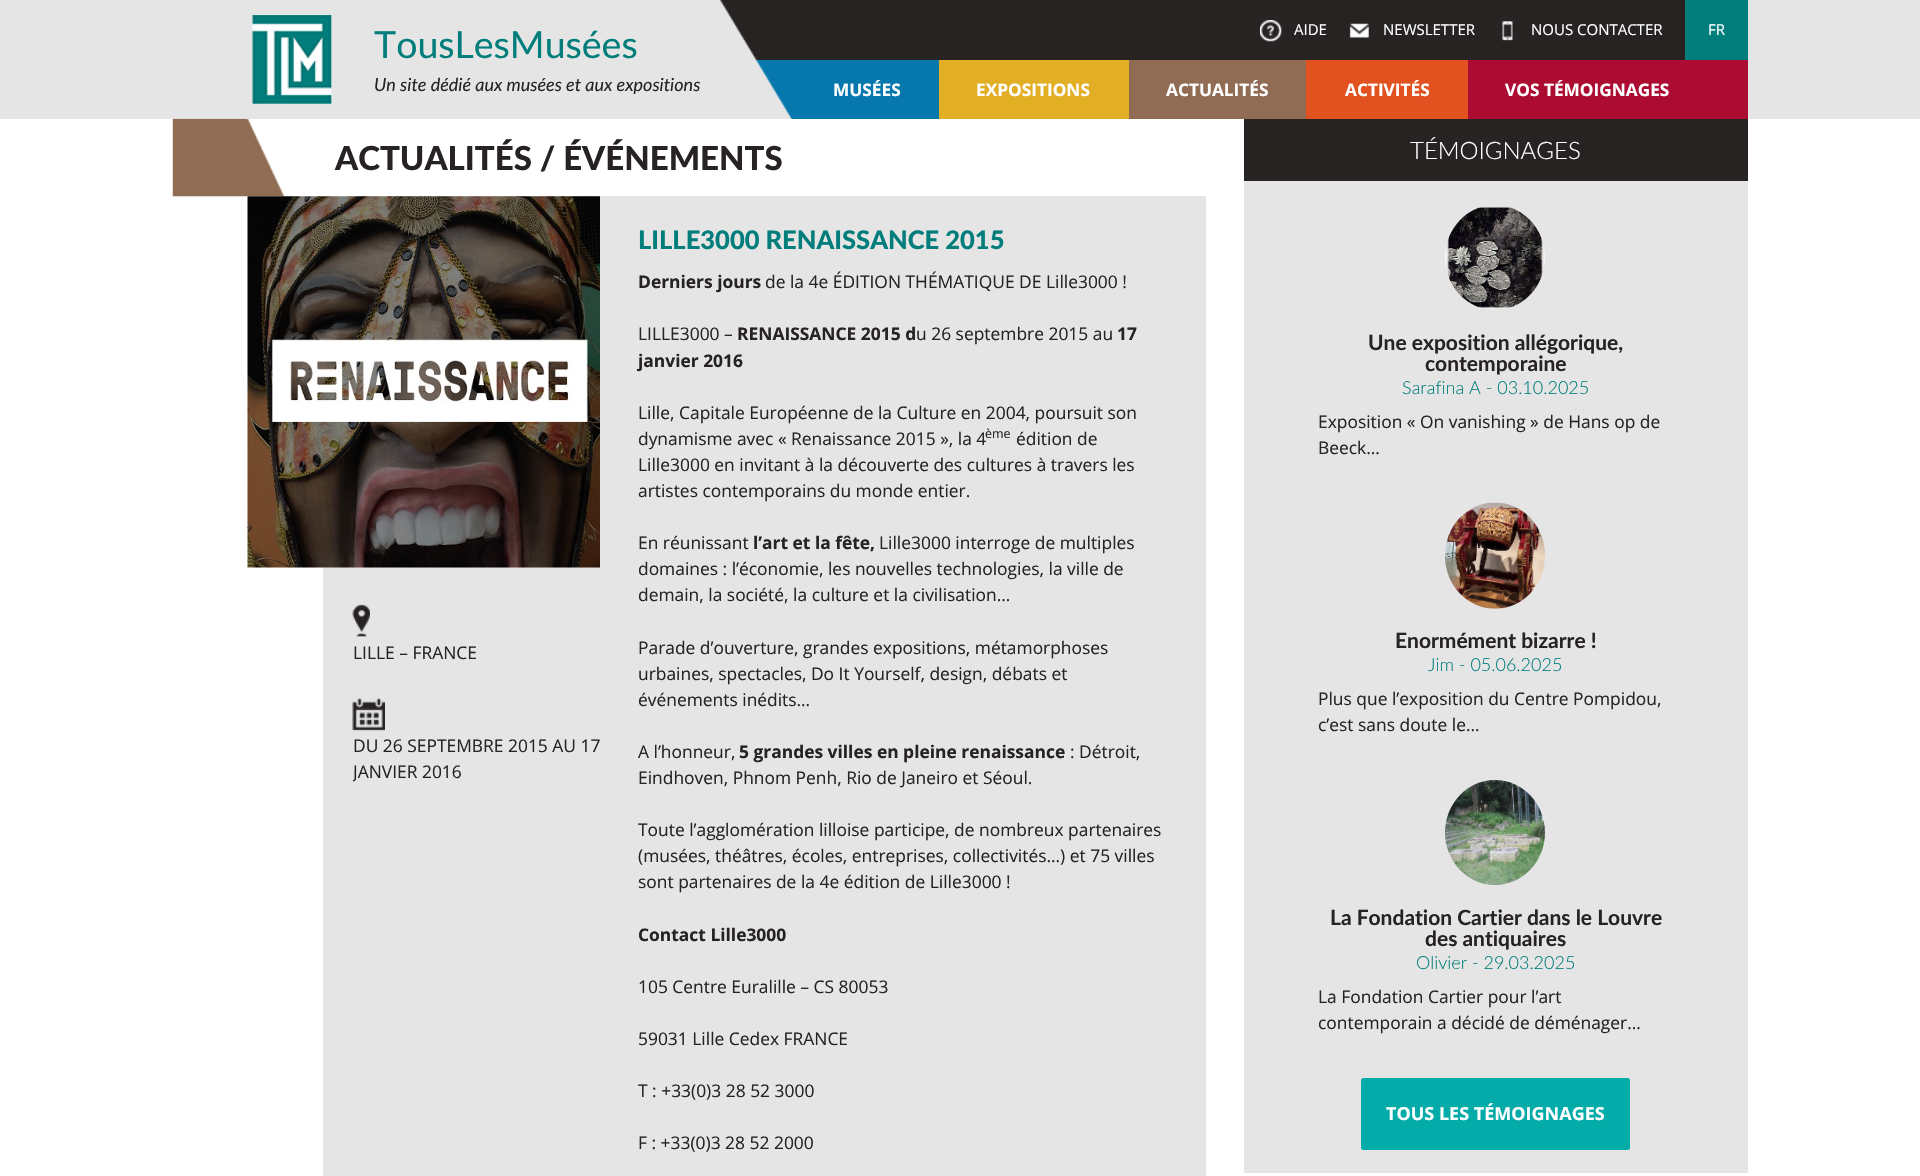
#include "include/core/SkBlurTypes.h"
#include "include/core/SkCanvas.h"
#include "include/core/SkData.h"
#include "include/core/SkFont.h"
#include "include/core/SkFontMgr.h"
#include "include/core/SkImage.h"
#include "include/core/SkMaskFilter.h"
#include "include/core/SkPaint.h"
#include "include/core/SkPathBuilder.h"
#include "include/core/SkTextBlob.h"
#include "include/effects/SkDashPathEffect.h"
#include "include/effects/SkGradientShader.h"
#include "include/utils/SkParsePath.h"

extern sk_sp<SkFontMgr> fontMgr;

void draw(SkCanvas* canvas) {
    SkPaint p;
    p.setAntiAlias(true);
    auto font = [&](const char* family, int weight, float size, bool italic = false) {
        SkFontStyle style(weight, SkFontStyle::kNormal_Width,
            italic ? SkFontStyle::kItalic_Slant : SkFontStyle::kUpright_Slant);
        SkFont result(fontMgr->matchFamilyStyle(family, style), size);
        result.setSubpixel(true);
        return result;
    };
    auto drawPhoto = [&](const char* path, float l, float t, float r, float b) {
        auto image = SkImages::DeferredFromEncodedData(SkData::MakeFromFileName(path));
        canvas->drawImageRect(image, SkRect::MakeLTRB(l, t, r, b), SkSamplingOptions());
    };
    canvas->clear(0xFFE5E5E5);
    drawPhoto("media/1.png", 252, 15, 332, 104);
    auto font1 = font("Lato", 400, 37.5f);
    p.setColor(0xFF017E7B);
    canvas->drawString("TousLesMusées", 374, 58, font1, p);
    auto font2 = font("Lato", 400, 18, true);
    p.setColor(0xFF272323);
    canvas->drawString("Un site dédié aux musées et aux expositions", 374, 91, font2, p);
    canvas->drawRect(SkRect::MakeLTRB(720, 0, 1685, 60), p);
    p.setColor(0xFF0778AD);
    canvas->drawRect(SkRect::MakeLTRB(755, 60, 939, 119), p);
    drawPhoto("media/2.png", 720, 0, 793, 119);
    drawPhoto("media/3.png", 1260, 20, 1282, 42);
    auto font3 = font("Open Sans", 400, 15);
    p.setColor(0xFFFFFFFF);
    canvas->drawString("AIDE", 1294, 35, font3, p);
    drawPhoto("media/4.png", 1349, 23, 1369, 38);
    canvas->drawString("NEWSLETTER", 1383, 35, font3, p);
    drawPhoto("media/5.png", 1502, 21, 1513, 41);
    canvas->drawString("NOUS CONTACTER", 1531, 35, font3, p);
    p.setColor(0xFF017E7B);
    canvas->drawRect(SkRect::MakeLTRB(1685, 0, 1748, 60), p);
    p.setColor(0xFFFFFFFF);
    canvas->drawString("FR", 1708, 35, font3, p);
    auto font4 = font("Open Sans", 700, 17.25f);
    canvas->drawString("MUSÉES", 833, 96, font4, p);
    p.setColor(0xFFE2AE23);
    canvas->drawRect(SkRect::MakeLTRB(939, 60, 1129, 119), p);
    p.setColor(0xFFFFFFFF);
    canvas->drawString("EXPOSITIONS", 976, 96, font4, p);
    p.setColor(0xFF8F6C53);
    canvas->drawRect(SkRect::MakeLTRB(1129, 60, 1306, 119), p);
    p.setColor(0xFFFFFFFF);
    canvas->drawString("ACTUALITÉS", 1166, 96, font4, p);
    p.setColor(0xFFE15220);
    canvas->drawRect(SkRect::MakeLTRB(1306, 60, 1468, 119), p);
    p.setColor(0xFFFFFFFF);
    canvas->drawString("ACTIVITÉS", 1345, 96, font4, p);
    p.setColor(0xFFAC0C32);
    canvas->drawRect(SkRect::MakeLTRB(1468, 60, 1748, 119), p);
    p.setColor(0xFFFFFFFF);
    canvas->drawString("VOS TÉMOIGNAGES", 1505, 96, font4, p);
    canvas->drawRect(SkRect::MakeLTRB(0, 119, 1920, 1176), p);
    drawPhoto("media/6.png", 172, 118, 284, 197);
    auto font5 = font("Lato", 900, 33);
    p.setColor(0xFF272323);
    canvas->drawString("ACTUALITÉS / ÉVÉNEMENTS", 335, 170, font5, p);
    p.setColor(0xFFE5E5E5);
    canvas->drawRect(SkRect::MakeLTRB(323, 196, 1206, 1176), p);
    p.setColor(0xFFFFFFFF);
    canvas->drawRect(SkRect::MakeLTRB(247, 196, 284, 197), p);
    drawPhoto("media/7.png", 247, 196, 600, 568);
    drawPhoto("media/8.png", 352, 604, 370, 637);
    auto font6 = font("Open Sans", 400, 17.4f);
    p.setColor(0xFF272323);
    canvas->drawString("LILLE – FRANCE", 353, 659, font6, p);
    drawPhoto("media/9.png", 352, 698, 385, 731);
    canvas->drawString("DU 26 SEPTEMBRE 2015 AU 17", 353, 752, font6, p);
    canvas->save();
    canvas->clipRect(SkRect::MakeLTRB(353, 684, 600, 803));
    canvas->drawString("JANVIER 2016", 353, 778, font6, p);
    canvas->restore();
    auto font7 = font("Lato", 900, 25.5f);
    p.setColor(0xFF017E7B);
    canvas->drawString("LILLE3000 RENAISSANCE 2015", 638, 249, font7, p);
    auto font8 = font("Open Sans", 700, 17.4f);
    p.setColor(0xFF272323);
    canvas->drawString("Derniers jours", 638, 288, font8, p);
    canvas->drawString("de la 4e ÉDITION THÉMATIQUE DE Lille3000 !", 765, 288, font6, p);
    canvas->drawString("LILLE3000 –", 638, 340, font6, p);
    canvas->drawString("RENAISSANCE 2015 d", 737, 340, font8, p);
    canvas->drawString("u 26 septembre 2015 au", 916, 340, font6, p);
    canvas->drawString("17", 1117, 340, font8, p);
    canvas->drawString("janvier 2016", 638, 367, font8, p);
    canvas->drawString("Lille, Capitale Européenne de la Culture en 2004, poursuit son", 638, 419, font6, p);
    canvas->drawString("dynamisme avec « Renaissance 2015 », la 4", 638, 445, font6, p);
    auto font9 = font("Open Sans", 400, 12.5f);
    canvas->drawString("ème", 985, 438, font9, p);
    {
        const struct { const char* s; float x, y; } items[] = {
            {"édition de", 1016, 445},
            {"Lille3000 en invitant à la découverte des cultures à travers les", 638, 471},
            {"artistes contemporains du monde entier.", 638, 497},
            {"En réunissant", 638, 549},
        };
        for (auto [s, x, y] : items) {
            canvas->drawString(s, x, y, font6, p);
        }
    }
    canvas->drawString("l’art et la fête,", 753, 549, font8, p);
    {
        const struct { const char* s; float x, y; } items[] = {
            {"Lille3000 interroge de multiples", 879, 549},
            {"domaines : l’économie, les nouvelles technologies, la ville de", 638, 575},
            {"demain, la société, la culture et la civilisation…", 638, 601},
            {"Parade d’ouverture, grandes expositions, métamorphoses", 638, 654},
            {"urbaines, spectacles, Do It Yourself, design, débats et", 638, 680},
            {"événements inédits…", 638, 706},
            {"A l’honneur,", 638, 758},
        };
        for (auto [s, x, y] : items) {
            canvas->drawString(s, x, y, font6, p);
        }
    }
    canvas->drawString("5 grandes villes en pleine renaissance", 739, 758, font8, p);
    {
        const struct { const char* s; float x, y; } items[] = {
            {": Détroit,", 1070, 758},
            {"Eindhoven, Phnom Penh, Rio de Janeiro et Séoul.", 638, 784},
            {"Toute l’agglomération lilloise participe, de nombreux partenaires", 638, 836},
            {"(musées, théâtres, écoles, entreprises, collectivités…) et 75 villes", 638, 862},
            {"sont partenaires de la 4e édition de Lille3000 !", 638, 888},
        };
        for (auto [s, x, y] : items) {
            canvas->drawString(s, x, y, font6, p);
        }
    }
    canvas->drawString("Contact Lille3000", 638, 941, font8, p);
    {
        const struct { const char* s; float x, y; } items[] = {
            {"105 Centre Euralille – CS 80053", 638, 993},
            {"59031 Lille Cedex FRANCE", 638, 1045},
            {"T : +33(0)3 28 52 3000", 638, 1097},
            {"F : +33(0)3 28 52 2000", 638, 1149},
        };
        for (auto [s, x, y] : items) {
            canvas->drawString(s, x, y, font6, p);
        }
    }
    p.setColor(0xFFE5E5E5);
    canvas->drawRect(SkRect::MakeLTRB(1244, 181, 1748, 1173), p);
    p.setColor(0xFF272323);
    canvas->drawRect(SkRect::MakeLTRB(1244, 119, 1748, 181), p);
    auto font10 = font("Lato", 300, 24);
    p.setColor(0xFFFFFFFF);
    canvas->drawString("TÉMOIGNAGES", 1410, 159, font10, p);
    drawPhoto("media/10.png", 1445, 205, 1545, 310);
    auto font11 = font("Lato", 700, 21);
    p.setColor(0xFF272323);
    canvas->drawString("Une exposition allégorique,", 1368, 350, font11, p);
    canvas->drawString("contemporaine", 1425, 371, font11, p);
    auto font12 = font("Lato", 300, 18);
    p.setColor(0xFF017E7B);
    canvas->drawString("Sarafina A - 03.10.2025", 1402, 394, font12, p);
    p.setColor(0xFF272323);
    canvas->drawString("Exposition « On vanishing » de Hans op de", 1318, 428, font6, p);
    canvas->drawString("Beeck…", 1318, 454, font6, p);
    drawPhoto("media/11.png", 1445, 502, 1545, 609);
    canvas->drawString("Enormément bizarre !", 1395, 648, font11, p);
    p.setColor(0xFF017E7B);
    canvas->drawString("Jim - 05.06.2025", 1428, 671, font12, p);
    p.setColor(0xFF272323);
    canvas->drawString("Plus que l’exposition du Centre Pompidou,", 1318, 705, font6, p);
    canvas->drawString("c’est sans doute le…", 1318, 731, font6, p);
    drawPhoto("media/12.png", 1445, 780, 1545, 885);
    canvas->drawString("La Fondation Cartier dans le Louvre", 1330, 925, font11, p);
    canvas->drawString("des antiquaires", 1425, 946, font11, p);
    p.setColor(0xFF017E7B);
    canvas->drawString("Olivier - 29.03.2025", 1416, 969, font12, p);
    p.setColor(0xFF272323);
    canvas->drawString("La Fondation Cartier pour l’art", 1318, 1003, font6, p);
    canvas->drawString("contemporain a décidé de déménager…", 1318, 1029, font6, p);
    p.setColor(0xFF03ACA8);
    canvas->drawRoundRect(SkRect::MakeLTRB(1361, 1078, 1630, 1150), 2.5f, 2.5f, p);
    auto font13 = font("Open Sans", 700, 18);
    p.setColor(0xFFFFFFFF);
    canvas->drawString("TOUS LES TÉMOIGNAGES", 1386, 1120, font13, p);
}
